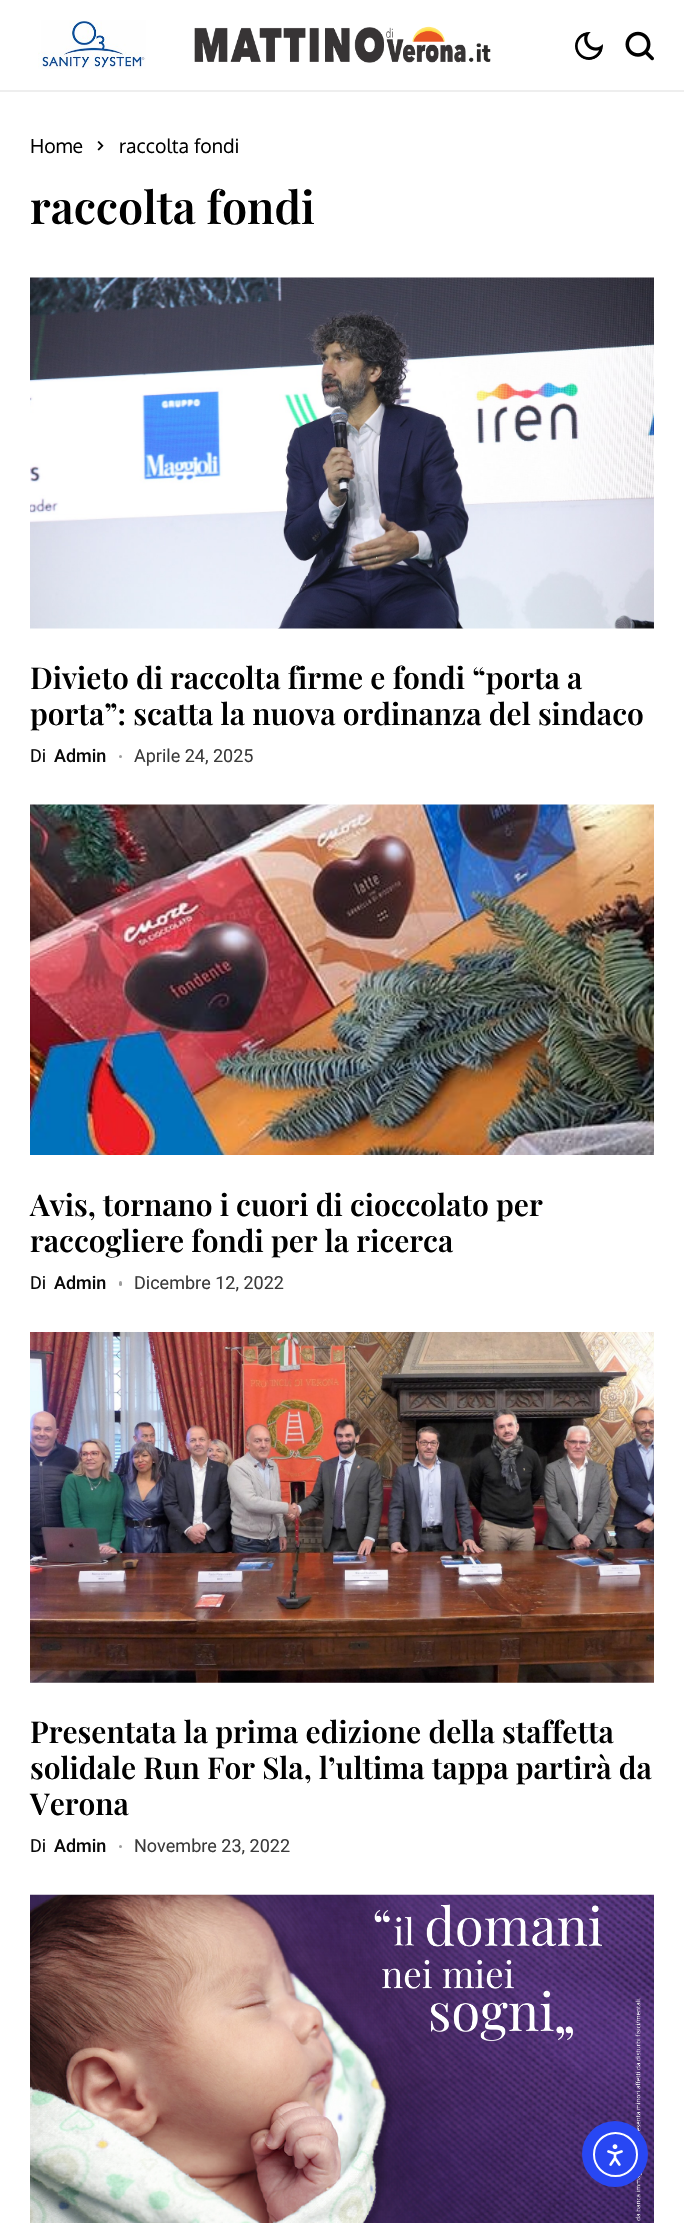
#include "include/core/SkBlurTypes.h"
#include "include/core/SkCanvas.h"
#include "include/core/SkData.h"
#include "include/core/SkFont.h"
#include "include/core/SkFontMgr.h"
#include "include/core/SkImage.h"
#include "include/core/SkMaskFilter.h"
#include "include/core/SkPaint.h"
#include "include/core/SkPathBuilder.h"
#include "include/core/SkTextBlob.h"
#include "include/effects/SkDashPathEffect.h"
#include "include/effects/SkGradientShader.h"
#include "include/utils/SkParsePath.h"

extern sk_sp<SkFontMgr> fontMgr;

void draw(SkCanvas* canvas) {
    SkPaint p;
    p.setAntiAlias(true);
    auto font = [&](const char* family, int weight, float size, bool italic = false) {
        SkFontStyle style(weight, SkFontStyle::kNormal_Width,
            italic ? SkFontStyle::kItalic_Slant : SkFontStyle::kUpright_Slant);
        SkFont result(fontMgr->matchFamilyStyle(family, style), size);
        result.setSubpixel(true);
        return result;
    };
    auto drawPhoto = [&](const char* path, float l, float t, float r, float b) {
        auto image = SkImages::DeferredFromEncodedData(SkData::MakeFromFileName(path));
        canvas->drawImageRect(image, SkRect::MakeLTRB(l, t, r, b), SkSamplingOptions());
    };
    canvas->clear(0xFFFFFFFF);
    p.setColor(0xFFEEEEEE);
    canvas->drawRect(SkRect::MakeLTRB(0, 90, 684, 92), p);
    drawPhoto("media/1.png", 38, 20, 146, 69);
    drawPhoto("media/2.png", 194, 26, 491, 63);
    drawPhoto("media/3.png", 575, 32, 603, 60);
    drawPhoto("media/4.png", 625, 31, 654, 61);
    auto font1 = font("Oxygen", 400, 19.5f);
    p.setColor(0xFF000000);
    canvas->drawString("Home", 30, 153, font1, p);
    drawPhoto("media/5.png", 97, 141, 104, 151);
    canvas->drawString("raccolta fondi", 119, 153, font1, p);
    auto font2 = font("Playfair Display", 600, 45);
    canvas->drawString("raccolta fondi", 30, 224, font2, p);
    drawPhoto("media/6.png", 30, 277, 654, 629);
    auto font3 = font("Playfair Display", 600, 30);
    canvas->drawString("Divieto di raccolta firme e fondi “porta a", 30, 689, font3, p);
    canvas->drawString("porta”: scatta la nuova ordinanza del sindaco", 30, 725, font3, p);
    auto font4 = font("Roboto", 400, 18);
    p.setColor(0xFF0A0A0A);
    canvas->drawString("Di", 30, 762, font4, p);
    auto font5 = font("Roboto", 500, 18);
    canvas->drawString("Admin", 54, 762, font5, p);
    p.setColor(0xFF9D9D9D);
    canvas->drawCircle(120.5f, 756.5f, 1.5f, p);
    p.setColor(0xFF3B3B3B);
    canvas->drawString("Aprile 24, 2025", 134, 762, font4, p);
    drawPhoto("media/7.png", 30, 804, 654, 1155);
    p.setColor(0xFF000000);
    canvas->drawString("Avis, tornano i cuori di cioccolato per", 30, 1216, font3, p);
    canvas->drawString("raccogliere fondi per la ricerca", 30, 1252, font3, p);
    p.setColor(0xFF0A0A0A);
    canvas->drawString("Di", 30, 1289, font4, p);
    canvas->drawString("Admin", 54, 1289, font5, p);
    p.setColor(0xFF9D9D9D);
    canvas->drawRoundRect(SkRect::MakeLTRB(119, 1281, 122, 1286), 1.5f, 1.5f, p);
    p.setColor(0xFF3B3B3B);
    canvas->drawString("Dicembre 12, 2022", 134, 1289, font4, p);
    drawPhoto("media/8.png", 30, 1332, 654, 1683);
    p.setColor(0xFF000000);
    {
        const struct { const char* s; float x, y; } items[] = {
            {"Presentata la prima edizione della staffetta", 30, 1743},
            {"solidale Run For Sla, l’ultima tappa partirà da", 30, 1779},
            {"Verona", 30, 1815},
        };
        for (auto [s, x, y] : items) {
            canvas->drawString(s, x, y, font3, p);
        }
    }
    p.setColor(0xFF0A0A0A);
    canvas->drawString("Di", 30, 1852, font4, p);
    canvas->drawString("Admin", 54, 1852, font5, p);
    p.setColor(0xFF9D9D9D);
    canvas->drawCircle(120.5f, 1846.5f, 1.5f, p);
    p.setColor(0xFF3B3B3B);
    canvas->drawString("Novembre 23, 2022", 134, 1852, font4, p);
    drawPhoto("media/9.png", 30, 1894, 654, 2223);
    p.setColor(0xFF2847F3);
    canvas->drawCircle(615, 2154, 33, p);
    p.setStyle(SkPaint::kStroke_Style);
    p.setStrokeWidth(2);
    p.setColor(0xFFFFFFFF);
    canvas->drawCircle(615.5f, 2154.5f, 21.5f, p);
    drawPhoto("media/10.png", 607, 2144, 623, 2166);
}
